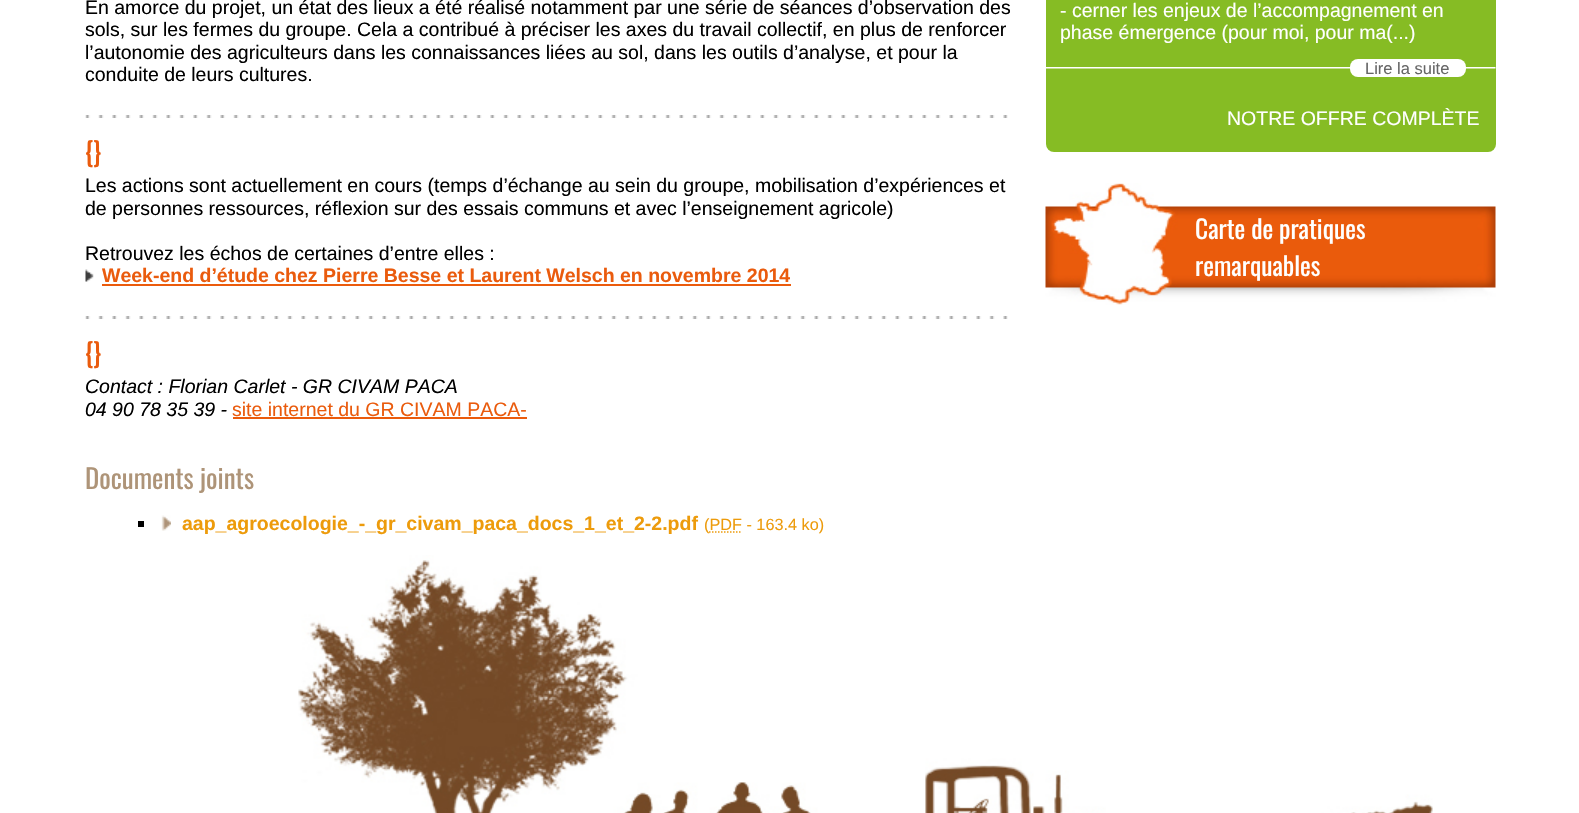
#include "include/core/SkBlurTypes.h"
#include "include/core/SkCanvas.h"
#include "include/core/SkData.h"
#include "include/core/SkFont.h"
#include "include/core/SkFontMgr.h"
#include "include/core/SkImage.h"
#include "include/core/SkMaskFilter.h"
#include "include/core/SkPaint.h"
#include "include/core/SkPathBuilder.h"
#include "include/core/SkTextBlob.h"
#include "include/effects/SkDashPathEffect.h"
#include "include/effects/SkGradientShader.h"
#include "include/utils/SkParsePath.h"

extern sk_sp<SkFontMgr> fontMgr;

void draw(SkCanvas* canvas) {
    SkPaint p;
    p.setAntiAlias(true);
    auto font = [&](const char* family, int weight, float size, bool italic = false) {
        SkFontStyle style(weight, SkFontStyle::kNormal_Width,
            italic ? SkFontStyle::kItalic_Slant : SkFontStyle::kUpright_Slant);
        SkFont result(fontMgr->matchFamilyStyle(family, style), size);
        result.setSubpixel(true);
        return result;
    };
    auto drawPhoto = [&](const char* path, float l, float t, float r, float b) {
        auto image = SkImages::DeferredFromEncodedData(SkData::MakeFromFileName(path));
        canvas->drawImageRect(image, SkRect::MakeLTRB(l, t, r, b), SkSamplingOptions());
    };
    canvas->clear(0xFFFFFFFF);
    drawPhoto("media/1.png", 298, 555, 1433, 813);
    auto font1 = font("Liberation Sans", 400, 19.5f);
    p.setColor(0xFF000000);
    {
        const struct { const char* s; float x, y; } items[] = {
            {"En amorce du projet, un état des lieux a été réalisé notamment par une série de séances d’observation des", 85, 14},
            {"sols, sur les fermes du groupe. Cela a contribué à préciser les axes du travail collectif, en plus de renforcer", 85, 36},
            {"l’autonomie des agriculteurs dans les connaissances liées au sol, dans les outils d’analyse, et pour la", 85, 59},
            {"conduite de leurs cultures.", 85, 81},
        };
        for (auto [s, x, y] : items) {
            canvas->drawString(s, x, y, font1, p);
        }
    }
    drawPhoto("media/2.png", 85, 115, 1008, 118);
    auto font2 = font("Oswald", 400, 27);
    p.setColor(0xFFEA5B0D);
    canvas->drawString("{}", 85, 162, font2, p);
    p.setColor(0xFF000000);
    {
        const struct { const char* s; float x, y; } items[] = {
            {"Les actions sont actuellement en cours (temps d’échange au sein du groupe, mobilisation d’expériences et", 85, 192},
            {"de personnes ressources, réflexion sur des essais communs et avec l’enseignement agricole)", 85, 215},
            {"Retrouvez les échos de certaines d’entre elles :", 85, 260},
        };
        for (auto [s, x, y] : items) {
            canvas->drawString(s, x, y, font1, p);
        }
    }
    drawPhoto("media/3.png", 85, 269, 94, 282);
    auto font3 = font("Liberation Sans", 700, 19.5f);
    p.setColor(0xFFEA5B0D);
    canvas->drawString("Week-end d’étude chez Pierre Besse et Laurent Welsch en novembre 2014", 102, 282, font3, p);
    p.setColor(0xFFEB5B0C);
    canvas->drawRect(SkRect::MakeLTRB(102, 284, 791, 286), p);
    drawPhoto("media/2.png", 85, 316, 1008, 319);
    p.setColor(0xFFEA5B0D);
    canvas->drawString("{}", 85, 363, font2, p);
    auto font4 = font("Liberation Sans", 400, 19.5f, true);
    p.setColor(0xFF000000);
    canvas->drawString("Contact : Florian Carlet - GR CIVAM PACA", 85, 393, font4, p);
    canvas->drawString("04 90 78 35 39 -", 85, 416, font4, p);
    p.setColor(0xFFEA5B0D);
    canvas->drawString("site internet du GR CIVAM PACA-", 232, 416, font1, p);
    p.setColor(0xFFEB5B0C);
    canvas->drawRect(SkRect::MakeLTRB(233, 417, 527, 419), p);
    p.setColor(0xFFAE9478);
    canvas->drawString("Documents joints", 85, 489, font2, p);
    drawPhoto("media/4.png", 161, 515, 171, 531);
    p.setColor(0xFF000000);
    canvas->drawRect(SkRect::MakeLTRB(138, 521, 144, 527), p);
    p.setColor(0xFFED9B0B);
    canvas->drawString("aap_agroecologie_-_gr_civam_paca_docs_1_et_2-2.pdf", 182, 530, font3, p);
    auto font5 = font("Liberation Sans", 400, 16.25f);
    canvas->drawString("(PDF - 163.4 ko)", 704, 530, font5, p);
    p.setStyle(SkPaint::kStroke_Style);
    p.setStrokeWidth(1.5f);
    p.setPathEffect(SkDashPathEffect::Make({{1.5f, 1.5f}}, 0));
    canvas->drawPath(SkPathBuilder().moveTo(709, 532).lineTo(741.5f, 532).detach(), p);
    p.setPathEffect(nullptr);
    p.setStyle(SkPaint::kFill_Style);
    p.setColor(0xFF86BC24);
    canvas->drawRoundRect(SkRect::MakeLTRB(1046, -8, 1496, 152), 8, 8, p);
    p.setColor(0xFFFFFFFF);
    canvas->drawString("- cerner les enjeux de l’accompagnement en", 1060, 17, font1, p);
    canvas->drawString("phase émergence (pour moi, pour ma(...)", 1060, 39, font1, p);
    drawPhoto("media/5.png", 1046, 67, 1496, 69);
    canvas->drawRoundRect(SkRect::MakeLTRB(1350, 59, 1466, 77), 8, 8, p);
    auto font6 = font("Liberation Sans", 400, 16.5f);
    p.setColor(0xFF666666);
    canvas->drawString("Lire la suite", 1365, 74, font6, p);
    p.setColor(0xFFFFFFFF);
    canvas->drawString("NOTRE OFFRE COMPLÈTE", 1227, 125, font1, p);
    drawPhoto("media/6.png", 1045, 183, 1496, 305);
    auto font7 = font("Oswald", 400, 25.5f);
    canvas->drawString("Carte de pratiques", 1195, 239, font7, p);
    canvas->drawString("remarquables", 1195, 276, font7, p);
}
